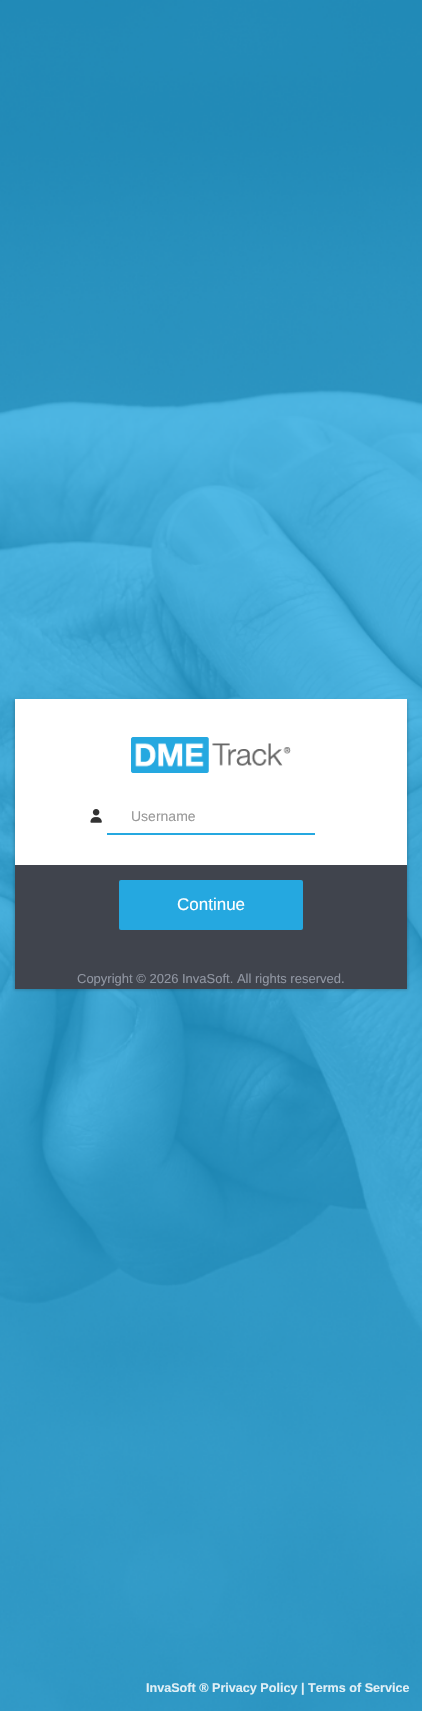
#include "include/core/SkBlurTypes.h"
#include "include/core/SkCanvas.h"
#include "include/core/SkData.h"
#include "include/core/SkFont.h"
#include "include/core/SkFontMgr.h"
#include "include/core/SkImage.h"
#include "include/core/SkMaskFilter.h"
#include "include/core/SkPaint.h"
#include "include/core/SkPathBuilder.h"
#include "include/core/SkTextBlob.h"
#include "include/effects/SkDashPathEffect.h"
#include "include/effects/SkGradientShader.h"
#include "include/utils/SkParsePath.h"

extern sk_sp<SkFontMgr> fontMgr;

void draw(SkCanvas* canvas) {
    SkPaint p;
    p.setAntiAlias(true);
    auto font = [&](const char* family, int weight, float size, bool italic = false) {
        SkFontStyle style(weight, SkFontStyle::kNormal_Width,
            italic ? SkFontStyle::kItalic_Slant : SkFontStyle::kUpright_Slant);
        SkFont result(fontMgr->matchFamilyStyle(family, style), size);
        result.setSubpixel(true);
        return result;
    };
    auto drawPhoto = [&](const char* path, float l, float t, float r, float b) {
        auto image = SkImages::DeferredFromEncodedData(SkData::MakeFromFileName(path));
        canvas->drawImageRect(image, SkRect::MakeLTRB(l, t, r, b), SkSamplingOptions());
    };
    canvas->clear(0xFFFFFFFF);
    drawPhoto("media/1.png", 0, 0, 422, 1711);
    p.setColor(0x33000000);
    p.setMaskFilter(SkMaskFilter::MakeBlur(kNormal_SkBlurStyle, 1.5f));
    canvas->drawRect(SkRect::MakeLTRB(14, 701, 408, 990), p);
    p.setMaskFilter(nullptr);
    p.setColor(0xFF40444D);
    canvas->drawRect(SkRect::MakeLTRB(15, 865, 407, 989), p);
    p.setColor(0xFFFFFFFF);
    canvas->drawRect(SkRect::MakeLTRB(15, 699, 407, 865), p);
    drawPhoto("media/2.png", 131, 737, 291, 773);
    p.setColor(0xFF25A8E0);
    canvas->drawRect(SkRect::MakeLTRB(107, 833, 315, 835), p);
    drawPhoto("media/3.png", 90, 809, 102, 823);
    auto font1 = font("Liberation Sans", 400, 14);
    p.setColor(0xFF999999);
    canvas->drawString("Username", 131, 821, font1, p);
    p.setColor(0xFF25A8E0);
    canvas->drawRoundRect(SkRect::MakeLTRB(119, 880, 303, 930), 2, 2, p);
    auto font2 = font("Liberation Sans", 400, 17);
    p.setColor(0xFFFFFFFF);
    canvas->drawString("Continue", 177, 910, font2, p);
    auto font3 = font("Liberation Sans", 400, 13);
    p.setColor(0xFF9096A2);
    canvas->drawString("Copyright © 2026 InvaSoft. All rights reserved.", 77, 983, font3, p);
    auto font4 = font("Liberation Sans", 700, 12.6f);
    p.setColor(0xFFE0EFF6);
    canvas->drawString("InvaSoft ® Privacy Policy | Terms of Service", 146, 1692, font4, p);
}
